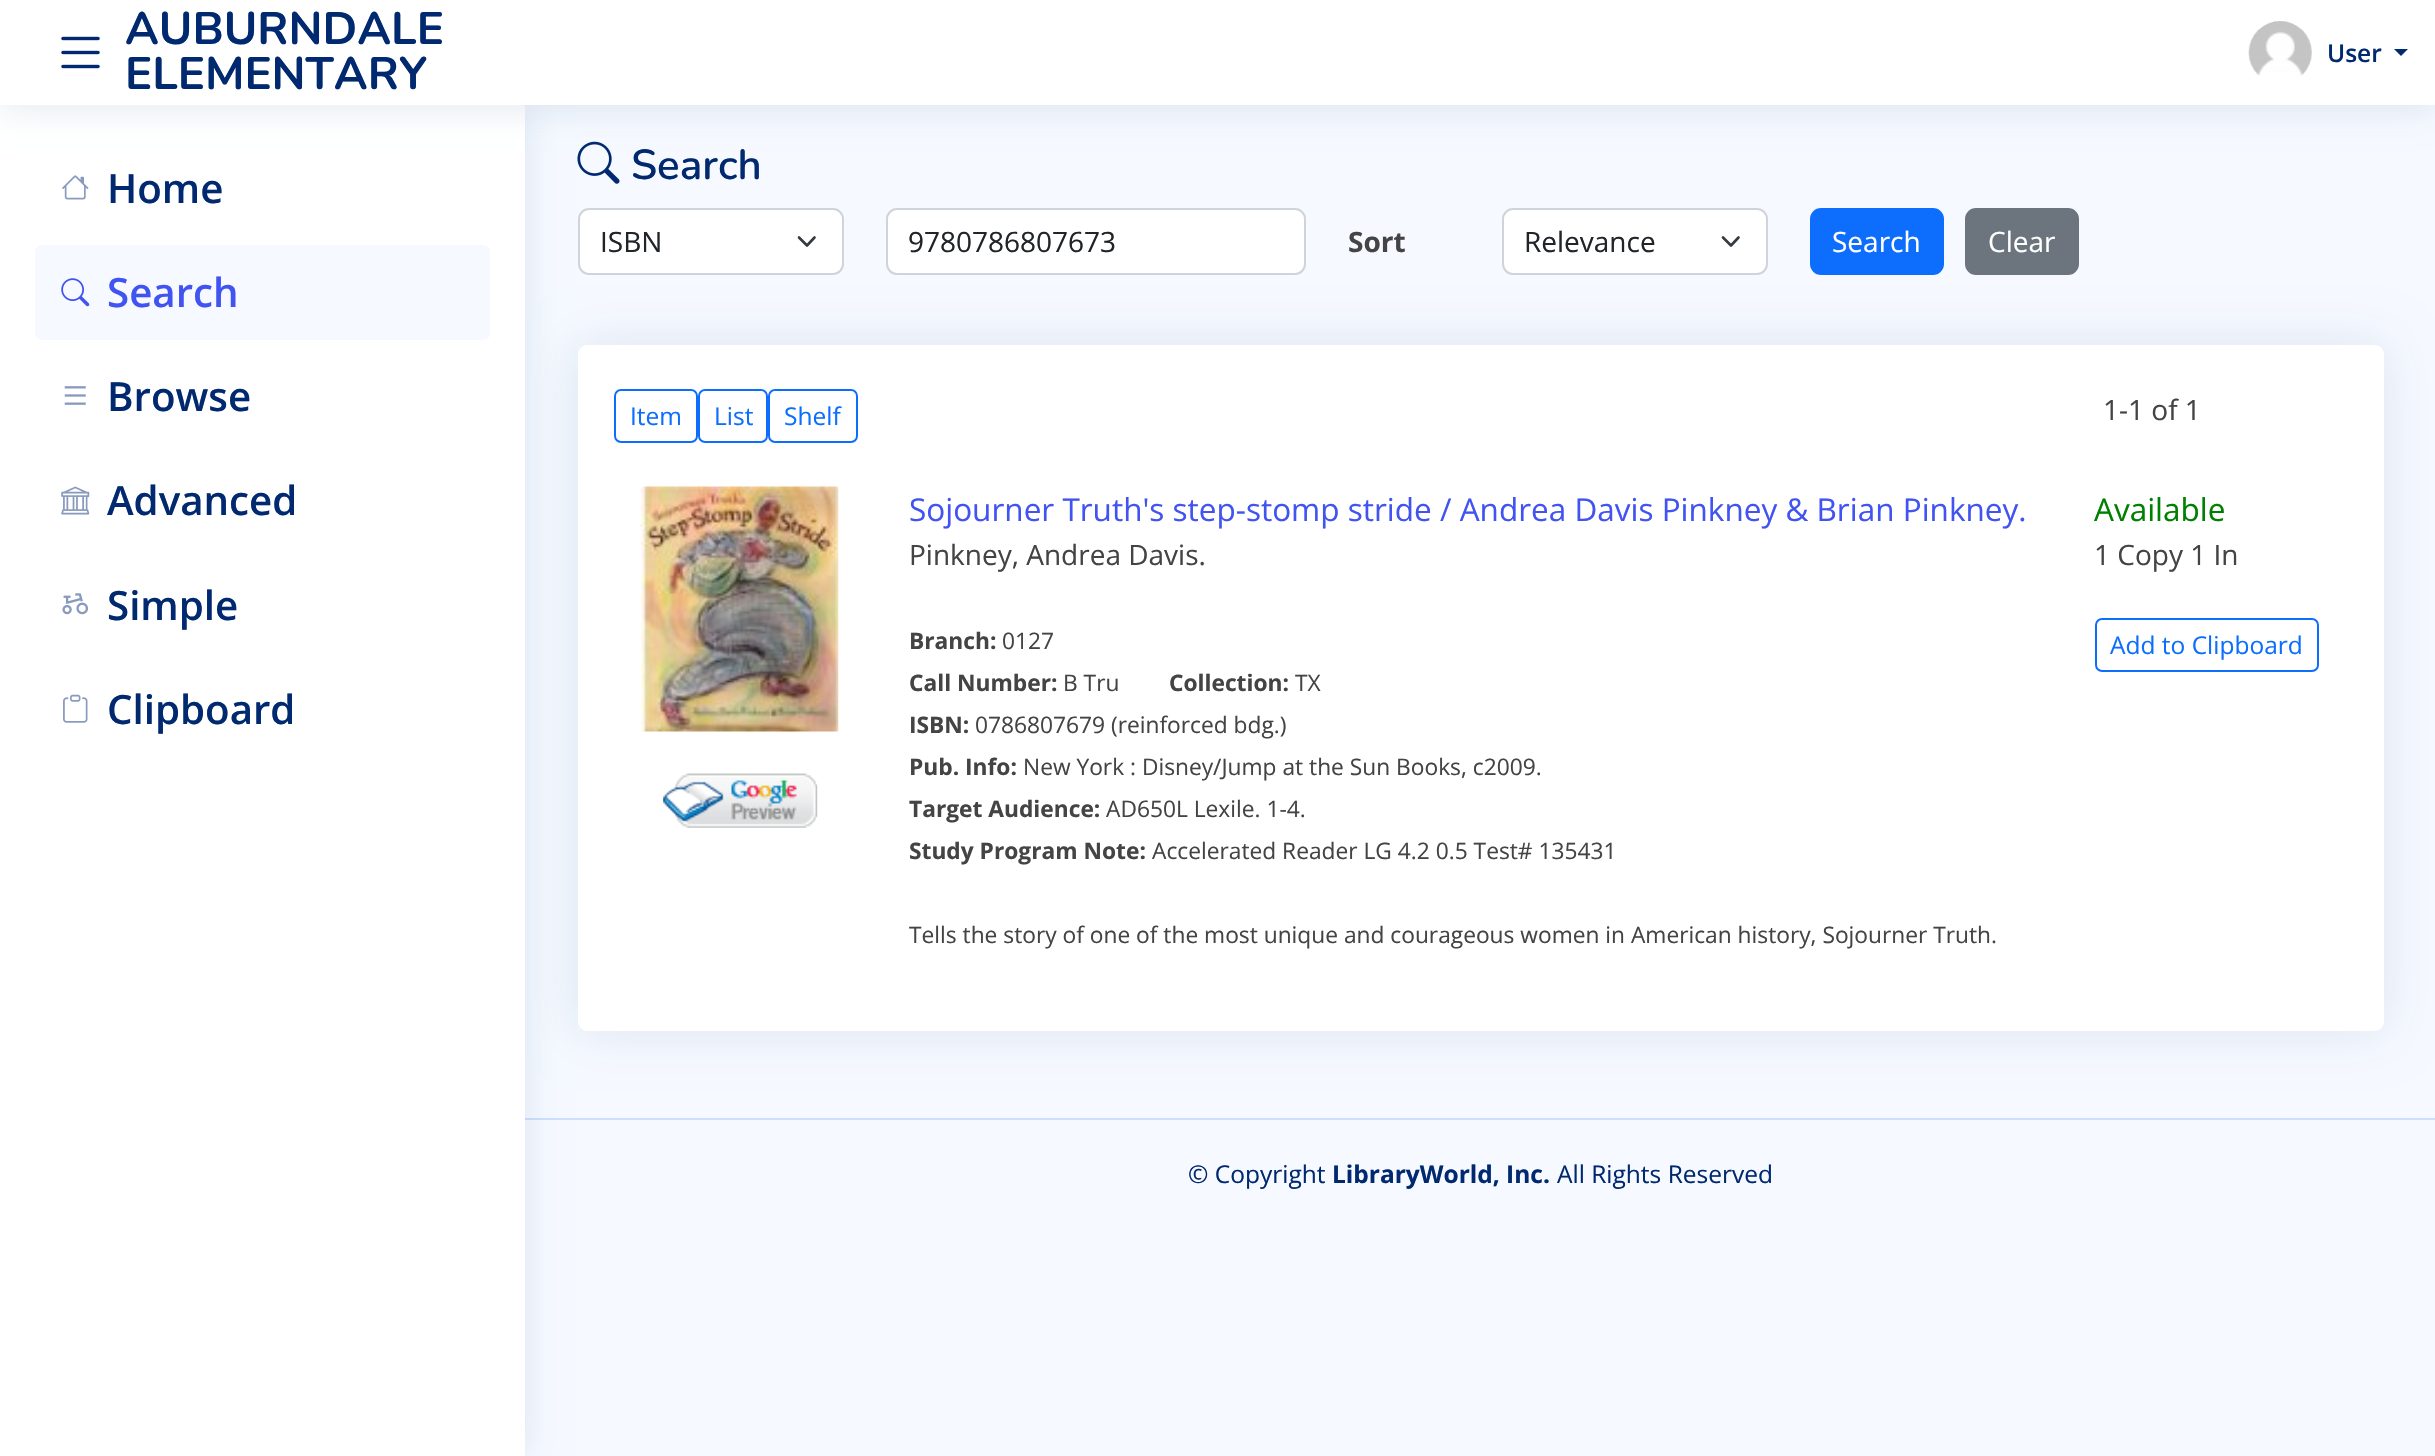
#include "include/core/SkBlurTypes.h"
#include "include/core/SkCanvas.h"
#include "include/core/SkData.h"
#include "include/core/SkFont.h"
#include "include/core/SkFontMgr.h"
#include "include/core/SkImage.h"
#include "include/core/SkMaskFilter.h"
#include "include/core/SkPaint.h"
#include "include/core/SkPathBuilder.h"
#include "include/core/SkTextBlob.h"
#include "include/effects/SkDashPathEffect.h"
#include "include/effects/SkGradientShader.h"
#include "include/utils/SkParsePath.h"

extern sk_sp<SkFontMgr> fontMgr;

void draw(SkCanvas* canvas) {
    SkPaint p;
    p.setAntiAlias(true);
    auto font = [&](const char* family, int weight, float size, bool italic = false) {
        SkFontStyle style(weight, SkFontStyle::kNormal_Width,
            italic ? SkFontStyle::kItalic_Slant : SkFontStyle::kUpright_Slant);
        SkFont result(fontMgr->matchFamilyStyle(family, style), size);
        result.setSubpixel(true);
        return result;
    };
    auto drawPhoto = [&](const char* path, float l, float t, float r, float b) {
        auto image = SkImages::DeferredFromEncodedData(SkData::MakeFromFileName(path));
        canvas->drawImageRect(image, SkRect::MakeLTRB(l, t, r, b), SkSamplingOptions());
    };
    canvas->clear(0xFFF6F9FF);
    drawPhoto("media/9.png", 577, 141, 620, 184);
    p.setColor(0xFFFFFFFF);
    canvas->drawRoundRect(SkRect::MakeLTRB(578, 208, 844, 275), 11, 11, p);
    p.setStyle(SkPaint::kStroke_Style);
    p.setStrokeWidth(2.6f);
    p.setStrokeCap(SkPaint::kRound_Cap);
    p.setStrokeJoin(SkPaint::kRound_Join);
    p.setColor(0xFF343A40);
    canvas->drawPath(SkPathBuilder().moveTo(799, 237.5f).lineTo(807, 245.5f).lineTo(814.5f, 237.5f).detach(), p);
    p.setStrokeWidth(2);
    p.setStrokeCap(SkPaint::kButt_Cap);
    p.setStrokeJoin(SkPaint::kMiter_Join);
    p.setColor(0xFFCED4DA);
    canvas->drawRoundRect(SkRect::MakeLTRB(579, 209, 843, 274), 10, 10, p);
    p.setStyle(SkPaint::kFill_Style);
    p.setColor(0xFFFFFFFF);
    canvas->drawRoundRect(SkRect::MakeLTRB(887, 209, 1305, 274), 10, 10, p);
    p.setStyle(SkPaint::kStroke_Style);
    p.setColor(0xFFCED4DA);
    canvas->drawRoundRect(SkRect::MakeLTRB(887, 209, 1305, 274), 10, 10, p);
    p.setStyle(SkPaint::kFill_Style);
    p.setColor(0xFFFFFFFF);
    canvas->drawRoundRect(SkRect::MakeLTRB(1502, 208, 1768, 275), 11, 11, p);
    p.setStyle(SkPaint::kStroke_Style);
    p.setStrokeWidth(2.6f);
    p.setStrokeCap(SkPaint::kRound_Cap);
    p.setStrokeJoin(SkPaint::kRound_Join);
    p.setColor(0xFF343A40);
    canvas->drawPath(SkPathBuilder().moveTo(1723, 237.5f).lineTo(1731, 245.5f).lineTo(1738.5f, 237.5f).detach(), p);
    p.setStrokeWidth(2);
    p.setStrokeCap(SkPaint::kButt_Cap);
    p.setStrokeJoin(SkPaint::kMiter_Join);
    p.setColor(0xFFCED4DA);
    canvas->drawRoundRect(SkRect::MakeLTRB(1503, 209, 1767, 274), 10, 10, p);
    p.setStyle(SkPaint::kFill_Style);
    p.setColor(0xFF0D6EFD);
    canvas->drawRoundRect(SkRect::MakeLTRB(1811, 209, 1943, 274), 10, 10, p);
    p.setStyle(SkPaint::kStroke_Style);
    canvas->drawRoundRect(SkRect::MakeLTRB(1811, 209, 1943, 274), 10, 10, p);
    p.setStyle(SkPaint::kFill_Style);
    p.setColor(0xFF6C757D);
    canvas->drawRoundRect(SkRect::MakeLTRB(1966, 209, 2078, 274), 10, 10, p);
    p.setStyle(SkPaint::kStroke_Style);
    canvas->drawRoundRect(SkRect::MakeLTRB(1966, 209, 2078, 274), 10, 10, p);
    p.setStyle(SkPaint::kFill_Style);
    p.setColor(0x1A012970);
    p.setMaskFilter(SkMaskFilter::MakeBlur(kNormal_SkBlurStyle, 26));
    canvas->drawRoundRect(SkRect::MakeLTRB(578, 345, 2384, 1031), 9, 9, p);
    p.setMaskFilter(nullptr);
    p.setColor(0xFFFFFFFF);
    canvas->drawRoundRect(SkRect::MakeLTRB(578, 345, 2384, 1031), 9, 9, p);
    p.setColor(0xFFCDDFFF);
    canvas->drawRect(SkRect::MakeLTRB(525, 1118, 2435, 1120), p);
    p.setColor(0x1A012970);
    p.setMaskFilter(SkMaskFilter::MakeBlur(kNormal_SkBlurStyle, 17.5f));
    canvas->drawRect(SkRect::MakeLTRB(0, 105, 525, 1456), p);
    p.setMaskFilter(nullptr);
    p.setColor(0xFFFFFFFF);
    canvas->drawRect(SkRect::MakeLTRB(0, 105, 525, 1456), p);
    p.setColor(0x1A012970);
    p.setMaskFilter(SkMaskFilter::MakeBlur(kNormal_SkBlurStyle, 17.5f));
    canvas->drawRect(SkRect::MakeLTRB(0, 4, 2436, 109), p);
    p.setMaskFilter(nullptr);
    p.setColor(0xFFFFFFFF);
    canvas->drawRect(SkRect::MakeLTRB(0, 0, 2435, 105), p);
    drawPhoto("media/1.png", 61, 36, 100, 69);
    auto font1 = font("Nunito", 700, 45.5f);
    p.setColor(0xFF012970);
    canvas->drawString("AUBURNDALE", 125, 44, font1, p);
    canvas->drawString("ELEMENTARY", 125, 89, font1, p);
    drawPhoto("media/2.png", 2248, 21, 2312, 76);
    auto font2 = font("Open Sans", 600, 24.5f);
    canvas->drawString("User", 2327, 62, font2, p);
    canvas->drawPath(SkPathBuilder().moveTo(2394, 49).lineTo(2408, 49).lineTo(2401, 56).close().detach(), p);
    drawPhoto("media/3.png", 62, 175, 89, 200);
    auto font3 = font("Open Sans", 600, 40.25f);
    canvas->drawString("Home", 107, 203, font3, p);
    p.setColor(0xFFF6F9FF);
    canvas->drawRoundRect(SkRect::MakeLTRB(35, 245, 490, 340), 7, 7, p);
    drawPhoto("media/4.png", 61, 278, 90, 307);
    p.setColor(0xFF4154F1);
    canvas->drawString("Search", 107, 307, font3, p);
    drawPhoto("media/5.png", 64, 386, 86, 405);
    p.setColor(0xFF012970);
    canvas->drawString("Browse", 107, 411, font3, p);
    drawPhoto("media/6.png", 61, 486, 90, 515);
    canvas->drawString("Advanced", 107, 515, font3, p);
    drawPhoto("media/7.png", 62, 593, 89, 615);
    canvas->drawString("Simple", 107, 620, font3, p);
    drawPhoto("media/8.png", 63, 694, 88, 723);
    canvas->drawString("Clipboard", 107, 724, font3, p);
    auto font4 = font("Nunito", 600, 42);
    canvas->drawString("Search", 631, 179, font4, p);
    auto font5 = font("Open Sans", 400, 28);
    p.setColor(0xFF212529);
    canvas->drawString("ISBN", 600, 252, font5, p);
    canvas->drawString("9780786807673", 908, 252, font5, p);
    auto font6 = font("Open Sans", 700, 28);
    p.setColor(0xFF444444);
    canvas->drawString("Sort", 1348, 252, font6, p);
    p.setColor(0xFF212529);
    canvas->drawString("Relevance", 1524, 252, font5, p);
    p.setColor(0xFFFFFFFF);
    canvas->drawString("Search", 1832, 252, font5, p);
    canvas->drawString("Clear", 1988, 252, font5, p);
    p.setStyle(SkPaint::kStroke_Style);
    p.setColor(0xFF0D6EFD);
    canvas->drawRoundRect(SkRect::MakeLTRB(615, 390, 697, 442), 6, 6, p);
    auto font7 = font("Open Sans", 400, 24.5f);
    p.setStyle(SkPaint::kFill_Style);
    canvas->drawString("Item", 630, 425, font7, p);
    p.setStyle(SkPaint::kStroke_Style);
    canvas->drawRoundRect(SkRect::MakeLTRB(699, 390, 767, 442), 6, 6, p);
    p.setStyle(SkPaint::kFill_Style);
    canvas->drawString("List", 714, 425, font7, p);
    p.setStyle(SkPaint::kStroke_Style);
    canvas->drawRoundRect(SkRect::MakeLTRB(769, 390, 857, 442), 6, 6, p);
    p.setStyle(SkPaint::kFill_Style);
    canvas->drawString("Shelf", 784, 425, font7, p);
    p.setColor(0xFF444444);
    canvas->drawString("1-1 of 1", 2103, 420, font5, p);
    drawPhoto("media/10.png", 640, 486, 839, 732);
    drawPhoto("media/11.png", 663, 773, 818, 828);
    auto font8 = font("Open Sans", 400, 31.5f);
    p.setColor(0xFF4154F1);
    canvas->drawString("Sojourner Truth's step-stomp stride / Andrea Davis Pinkney & Brian Pinkney.", 909, 521, font8, p);
    p.setColor(0xFF444444);
    canvas->drawString("Pinkney, Andrea Davis.", 909, 565, font5, p);
    auto font9 = font("Open Sans", 700, 22.75f);
    canvas->drawString("Branch:", 909, 649, font9, p);
    auto font10 = font("Open Sans", 400, 22.75f);
    canvas->drawString("0127", 1002, 649, font10, p);
    canvas->drawString("Call Number:", 909, 691, font9, p);
    canvas->drawString("B Tru", 1063, 691, font10, p);
    canvas->drawString("Collection:", 1169, 691, font9, p);
    canvas->drawString("TX", 1295, 691, font10, p);
    canvas->drawString("ISBN:", 909, 733, font9, p);
    canvas->drawString("0786807679 (reinforced bdg.)", 975, 733, font10, p);
    canvas->drawString("Pub. Info:", 909, 775, font9, p);
    canvas->drawString("New York : Disney/Jump at the Sun Books, c2009.", 1023, 775, font10, p);
    canvas->drawString("Target Audience:", 909, 817, font9, p);
    canvas->drawString("AD650L Lexile. 1-4.", 1106, 817, font10, p);
    canvas->drawString("Study Program Note:", 909, 859, font9, p);
    canvas->drawString("Accelerated Reader LG 4.2 0.5 Test# 135431", 1152, 859, font10, p);
    canvas->drawString("Tells the story of one of the most unique and courageous women in American history, Sojourner Truth.", 909, 943, font10, p);
    p.setColor(0xFF008000);
    canvas->drawString("Available", 2094, 521, font8, p);
    p.setColor(0xFF444444);
    canvas->drawString("1 Copy 1 In", 2094, 565, font5, p);
    p.setStyle(SkPaint::kStroke_Style);
    p.setColor(0xFF0D6EFD);
    canvas->drawRoundRect(SkRect::MakeLTRB(2096, 619, 2318, 671), 6, 6, p);
    p.setStyle(SkPaint::kFill_Style);
    canvas->drawString("Add to Clipboard", 2110, 654, font7, p);
    p.setColor(0xFF012970);
    canvas->drawString("© Copyright", 1188, 1183, font7, p);
    auto font11 = font("Open Sans", 700, 24.5f);
    canvas->drawString("LibraryWorld, Inc.", 1332, 1183, font11, p);
    canvas->drawString("All Rights Reserved", 1557, 1183, font7, p);
}
